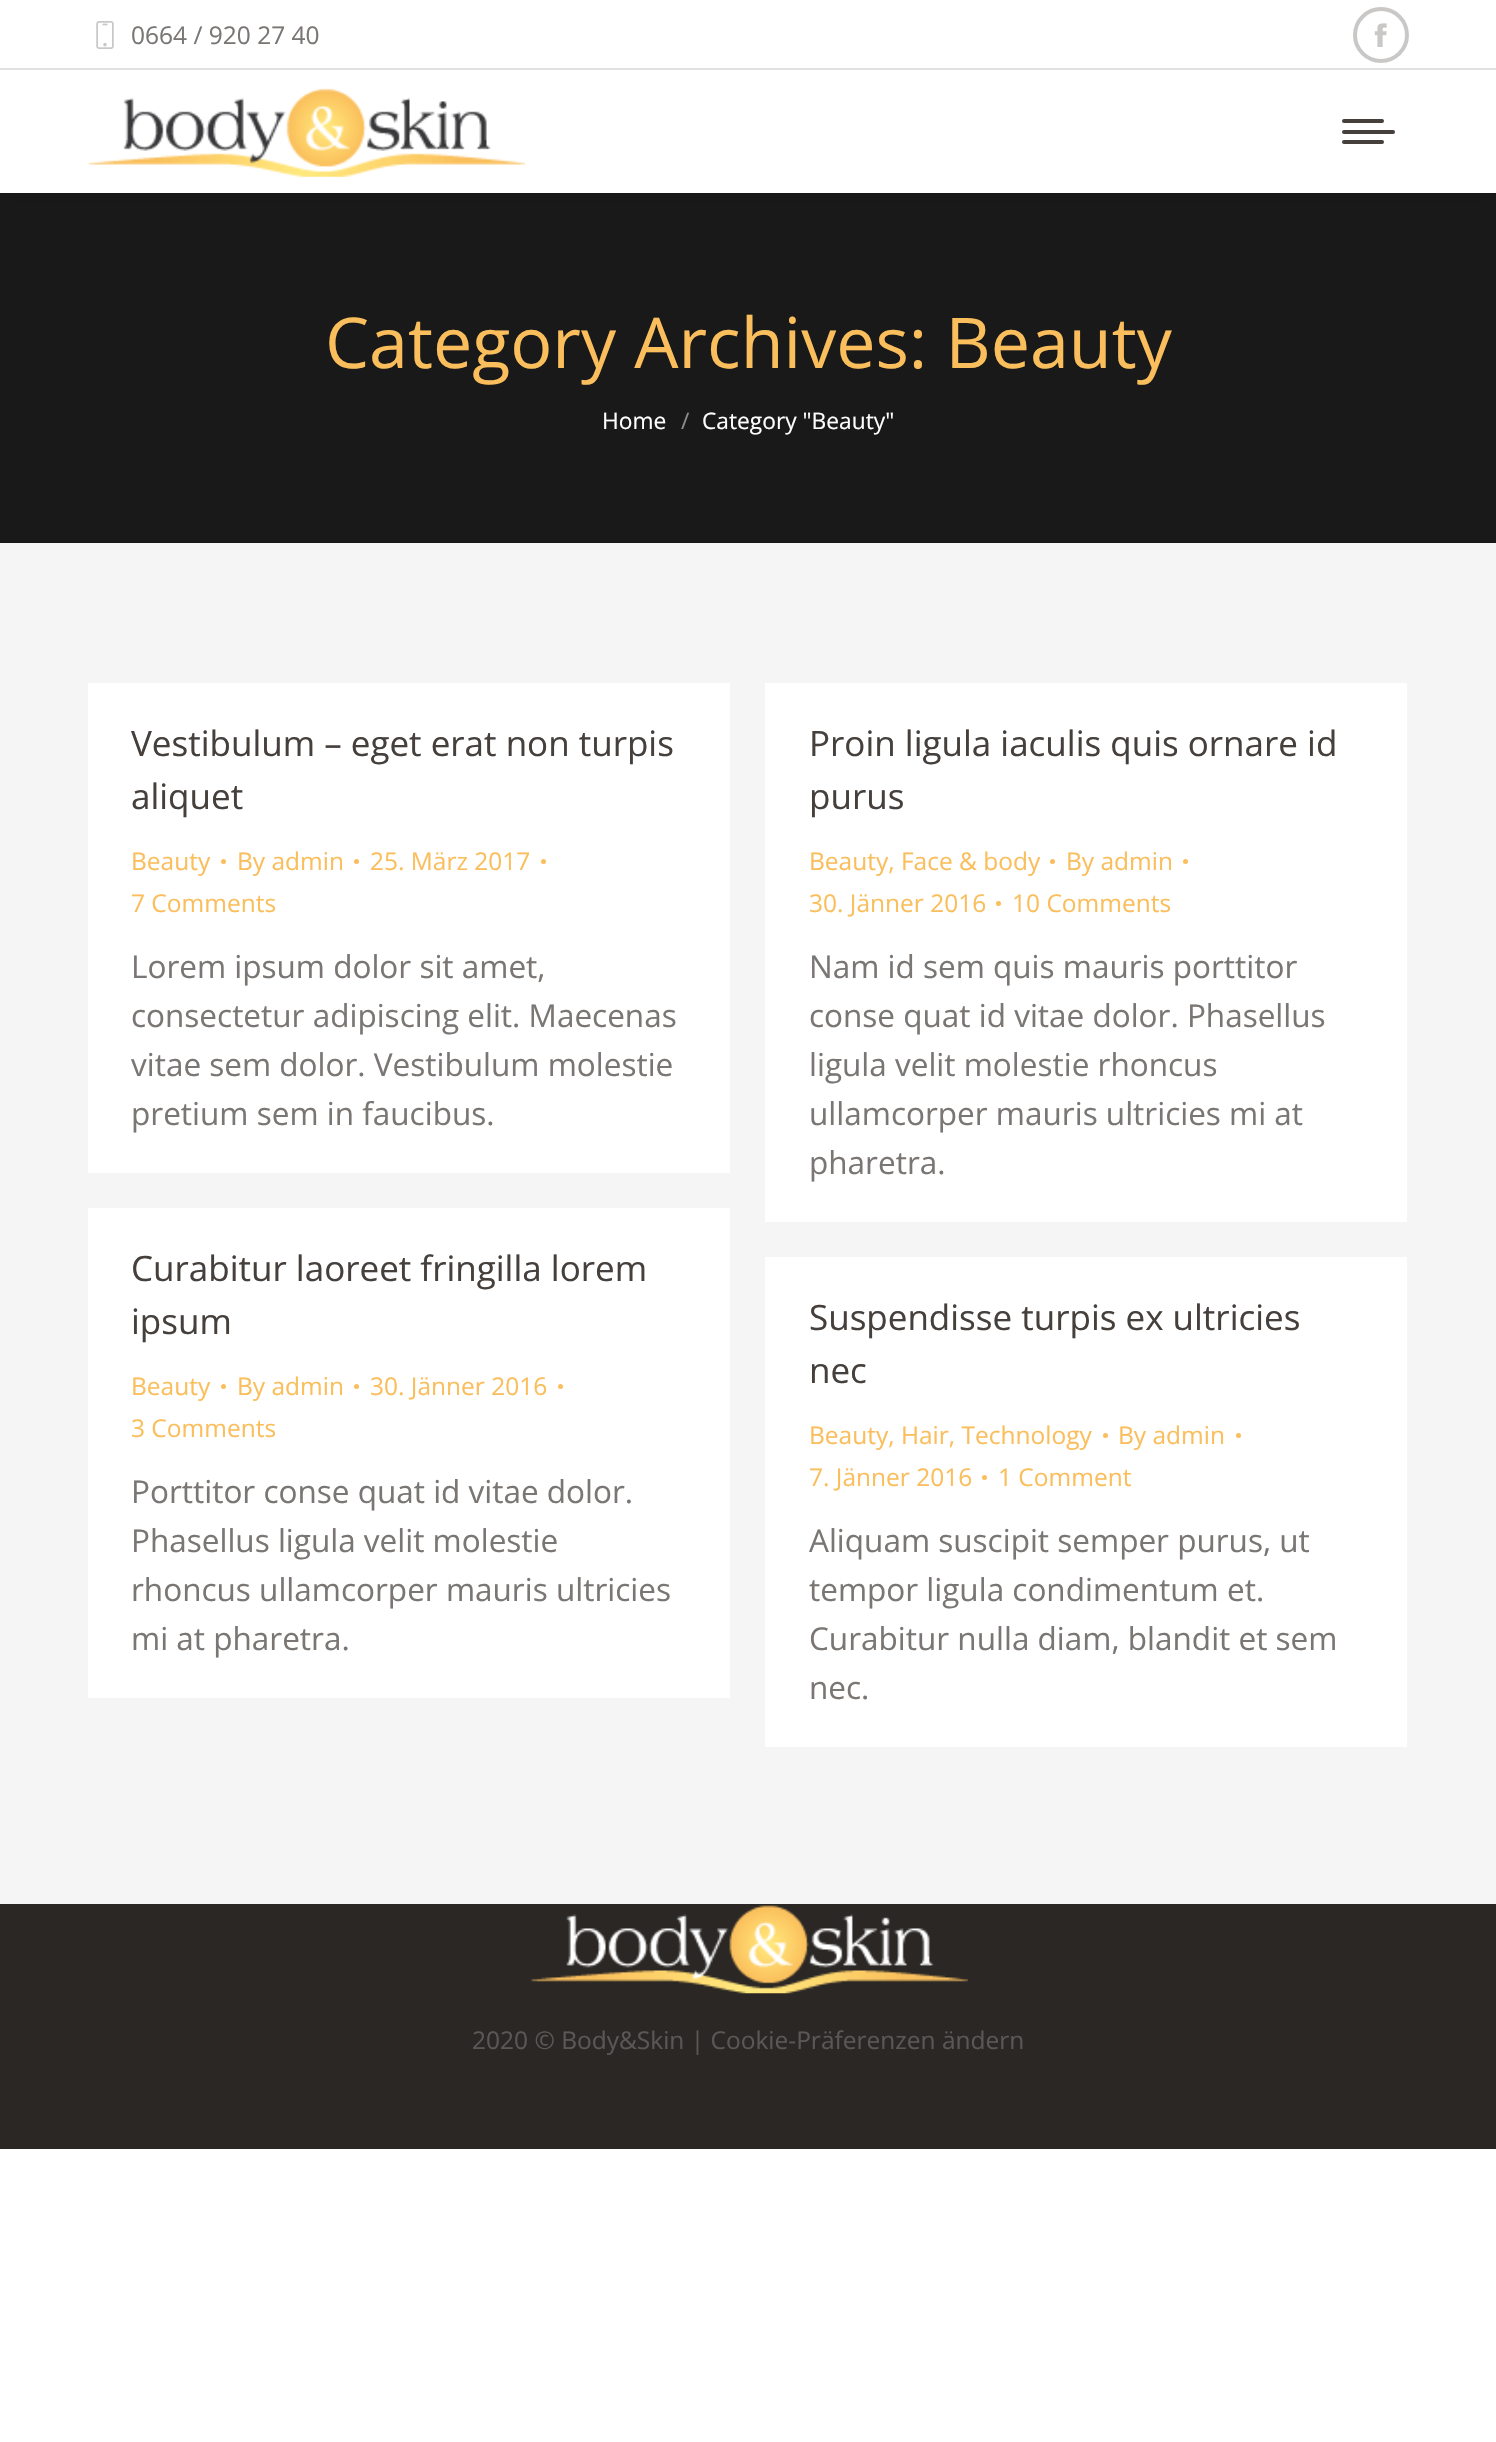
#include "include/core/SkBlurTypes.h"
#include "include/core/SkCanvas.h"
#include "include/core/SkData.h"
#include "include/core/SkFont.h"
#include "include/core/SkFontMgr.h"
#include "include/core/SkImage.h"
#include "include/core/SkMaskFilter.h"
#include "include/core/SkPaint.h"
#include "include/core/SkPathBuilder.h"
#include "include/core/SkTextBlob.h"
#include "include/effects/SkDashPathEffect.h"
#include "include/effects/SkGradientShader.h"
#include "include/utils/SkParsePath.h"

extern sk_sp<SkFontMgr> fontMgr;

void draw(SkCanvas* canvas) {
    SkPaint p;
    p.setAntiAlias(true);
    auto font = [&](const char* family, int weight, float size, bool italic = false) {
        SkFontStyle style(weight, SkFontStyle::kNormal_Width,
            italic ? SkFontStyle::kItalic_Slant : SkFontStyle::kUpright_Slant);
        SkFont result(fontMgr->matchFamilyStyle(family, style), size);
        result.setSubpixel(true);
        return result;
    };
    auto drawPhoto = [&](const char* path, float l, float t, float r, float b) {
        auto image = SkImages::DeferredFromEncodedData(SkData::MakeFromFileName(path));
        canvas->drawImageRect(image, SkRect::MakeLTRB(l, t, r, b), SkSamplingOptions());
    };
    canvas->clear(0xFFFFFFFF);
    p.setColor(0xFFF5F5F5);
    canvas->drawRect(SkRect::MakeLTRB(0, 543, 1496, 1904), p);
    p.setColor(0xFF191919);
    canvas->drawRect(SkRect::MakeLTRB(0, 193, 1496, 543), p);
    p.setColor(0x12000000);
    p.setMaskFilter(SkMaskFilter::MakeBlur(kNormal_SkBlurStyle, 13));
    canvas->drawRect(SkRect::MakeLTRB(-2, -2, 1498, 194), p);
    p.setMaskFilter(nullptr);
    p.setColor(0xFFFFFFFF);
    canvas->drawRect(SkRect::MakeLTRB(0, 0, 1496, 193), p);
    drawPhoto("media/1.png", 96, 21, 114, 49);
    auto font1 = font("Open Sans", 400, 24.5f);
    p.setColor(0xFF7A7674);
    canvas->drawString("0664 / 920 27 40", 131, 44, font1, p);
    p.setStyle(SkPaint::kStroke_Style);
    p.setStrokeWidth(4);
    p.setColor(0xFFCAC8C7);
    canvas->drawCircle(1381, 35, 26, p);
    drawPhoto("media/2.png", 1374, 23, 1387, 47);
    p.setStyle(SkPaint::kFill_Style);
    p.setColor(0xFFE0E0E0);
    canvas->drawRect(SkRect::MakeLTRB(0, 68, 1496, 70), p);
    drawPhoto("media/3.png", 87, 88, 525, 177);
    p.setColor(0xFF46403D);
    canvas->drawRoundRect(SkRect::MakeLTRB(1342, 119, 1384, 123), 2, 2, p);
    canvas->drawRoundRect(SkRect::MakeLTRB(1342, 130, 1395, 134), 2, 2, p);
    canvas->drawRoundRect(SkRect::MakeLTRB(1342, 140, 1384, 144), 2, 2, p);
    auto font2 = font("Open Sans", 400, 70);
    p.setColor(0xFFFABE5C);
    canvas->drawString("Category Archives: Beauty", 325, 368, font2, p);
    auto font3 = font("Open Sans", 400, 22.75f);
    p.setColor(0xFFFFFFFF);
    canvas->drawString("Home", 602, 429, font3, p);
    p.setColor(0xFF8C8C8C);
    canvas->drawString("/", 681, 429, font3, p);
    p.setColor(0xFFFFFFFF);
    canvas->drawString("Category \"Beauty\"", 702, 429, font3, p);
    canvas->drawRect(SkRect::MakeLTRB(88, 683, 730, 1173), p);
    auto font4 = font("Open Sans", 400, 35);
    p.setColor(0xFF46403D);
    canvas->drawString("Vestibulum – eget erat non turpis", 131, 756, font4, p);
    canvas->drawString("aliquet", 131, 809, font4, p);
    p.setColor(0xFFFABE5C);
    canvas->drawString("Beauty", 131, 870, font1, p);
    p.setColor(0xFFFABE5D);
    canvas->drawCircle(223.5f, 861.5f, 2.5f, p);
    p.setColor(0xFFFABE5C);
    canvas->drawString("By admin", 237, 870, font1, p);
    p.setColor(0xFFFABE5D);
    canvas->drawCircle(356.5f, 861.5f, 2.5f, p);
    p.setColor(0xFFFABE5C);
    canvas->drawString("25. März 2017", 370, 870, font1, p);
    p.setColor(0xFFFABE5D);
    canvas->drawCircle(543.5f, 861.5f, 2.5f, p);
    p.setColor(0xFFFABE5C);
    canvas->drawString("7 Comments", 131, 912, font1, p);
    auto font5 = font("Open Sans", 400, 31.5f);
    p.setColor(0xFF7A7674);
    {
        const struct { const char* s; float x, y; } items[] = {
            {"Lorem ipsum dolor sit amet,", 131, 978},
            {"consectetur adipiscing elit. Maecenas", 131, 1027},
            {"vitae sem dolor. Vestibulum molestie", 131, 1076},
            {"pretium sem in faucibus.", 131, 1125},
        };
        for (auto [s, x, y] : items) {
            canvas->drawString(s, x, y, font5, p);
        }
    }
    p.setColor(0xFFFFFFFF);
    canvas->drawRect(SkRect::MakeLTRB(765, 683, 1407, 1222), p);
    p.setColor(0xFF46403D);
    canvas->drawString("Proin ligula iaculis quis ornare id", 809, 756, font4, p);
    canvas->drawString("purus", 809, 809, font4, p);
    p.setColor(0xFFFABE5C);
    canvas->drawString("Beauty, Face & body", 809, 870, font1, p);
    p.setColor(0xFFFABE5D);
    canvas->drawCircle(1052.5f, 861.5f, 2.5f, p);
    p.setColor(0xFFFABE5C);
    canvas->drawString("By admin", 1066, 870, font1, p);
    p.setColor(0xFFFABE5D);
    canvas->drawCircle(1185.5f, 861.5f, 2.5f, p);
    p.setColor(0xFFFABE5C);
    canvas->drawString("30. Jänner 2016", 809, 912, font1, p);
    p.setColor(0xFFFABE5D);
    canvas->drawCircle(998.5f, 903.5f, 2.5f, p);
    p.setColor(0xFFFABE5C);
    canvas->drawString("10 Comments", 1012, 912, font1, p);
    p.setColor(0xFF7A7674);
    {
        const struct { const char* s; float x, y; } items[] = {
            {"Nam id sem quis mauris porttitor", 809, 978},
            {"conse quat id vitae dolor. Phasellus", 809, 1027},
            {"ligula velit molestie rhoncus", 809, 1076},
            {"ullamcorper mauris ultricies mi at", 809, 1125},
            {"pharetra.", 809, 1174},
        };
        for (auto [s, x, y] : items) {
            canvas->drawString(s, x, y, font5, p);
        }
    }
    p.setColor(0xFFFFFFFF);
    canvas->drawRect(SkRect::MakeLTRB(88, 1208, 730, 1698), p);
    p.setColor(0xFF46403D);
    canvas->drawString("Curabitur laoreet fringilla lorem", 131, 1281, font4, p);
    canvas->drawString("ipsum", 131, 1334, font4, p);
    p.setColor(0xFFFABE5C);
    canvas->drawString("Beauty", 131, 1395, font1, p);
    p.setColor(0xFFFABE5D);
    canvas->drawCircle(223.5f, 1386.5f, 2.5f, p);
    p.setColor(0xFFFABE5C);
    canvas->drawString("By admin", 237, 1395, font1, p);
    p.setColor(0xFFFABE5D);
    canvas->drawCircle(356.5f, 1386.5f, 2.5f, p);
    p.setColor(0xFFFABE5C);
    canvas->drawString("30. Jänner 2016", 370, 1395, font1, p);
    p.setColor(0xFFFABE5D);
    canvas->drawCircle(560.5f, 1386.5f, 2.5f, p);
    p.setColor(0xFFFABE5C);
    canvas->drawString("3 Comments", 131, 1437, font1, p);
    p.setColor(0xFF7A7674);
    {
        const struct { const char* s; float x, y; } items[] = {
            {"Porttitor conse quat id vitae dolor.", 131, 1503},
            {"Phasellus ligula velit molestie", 131, 1552},
            {"rhoncus ullamcorper mauris ultricies", 131, 1601},
            {"mi at pharetra.", 131, 1650},
        };
        for (auto [s, x, y] : items) {
            canvas->drawString(s, x, y, font5, p);
        }
    }
    p.setColor(0xFFFFFFFF);
    canvas->drawRect(SkRect::MakeLTRB(765, 1257, 1407, 1747), p);
    p.setColor(0xFF46403D);
    canvas->drawString("Suspendisse turpis ex ultricies", 809, 1330, font4, p);
    canvas->drawString("nec", 809, 1383, font4, p);
    p.setColor(0xFFFABE5C);
    canvas->drawString("Beauty, Hair, Technology", 809, 1444, font1, p);
    p.setColor(0xFFFABE5D);
    canvas->drawCircle(1105.5f, 1435.5f, 2.5f, p);
    p.setColor(0xFFFABE5C);
    canvas->drawString("By admin", 1118, 1444, font1, p);
    p.setColor(0xFFFABE5D);
    canvas->drawCircle(1238.5f, 1435.5f, 2.5f, p);
    p.setColor(0xFFFABE5C);
    canvas->drawString("7. Jänner 2016", 809, 1486, font1, p);
    p.setColor(0xFFFABE5D);
    canvas->drawCircle(984.5f, 1477.5f, 2.5f, p);
    p.setColor(0xFFFABE5C);
    canvas->drawString("1 Comment", 998, 1486, font1, p);
    p.setColor(0xFF7A7674);
    {
        const struct { const char* s; float x, y; } items[] = {
            {"Aliquam suscipit semper purus, ut", 809, 1552},
            {"tempor ligula condimentum et.", 809, 1601},
            {"Curabitur nulla diam, blandit et sem", 809, 1650},
            {"nec.", 809, 1699},
        };
        for (auto [s, x, y] : items) {
            canvas->drawString(s, x, y, font5, p);
        }
    }
    p.setColor(0xFF2A2725);
    canvas->drawRect(SkRect::MakeLTRB(0, 1904, 1496, 2149), p);
    drawPhoto("media/4.png", 530, 1905, 968, 1994);
    p.setColor(0xFF5A5756);
    canvas->drawString("2020 © Body&Skin | Cookie-Präferenzen ändern", 472, 2049, font1, p);
}
